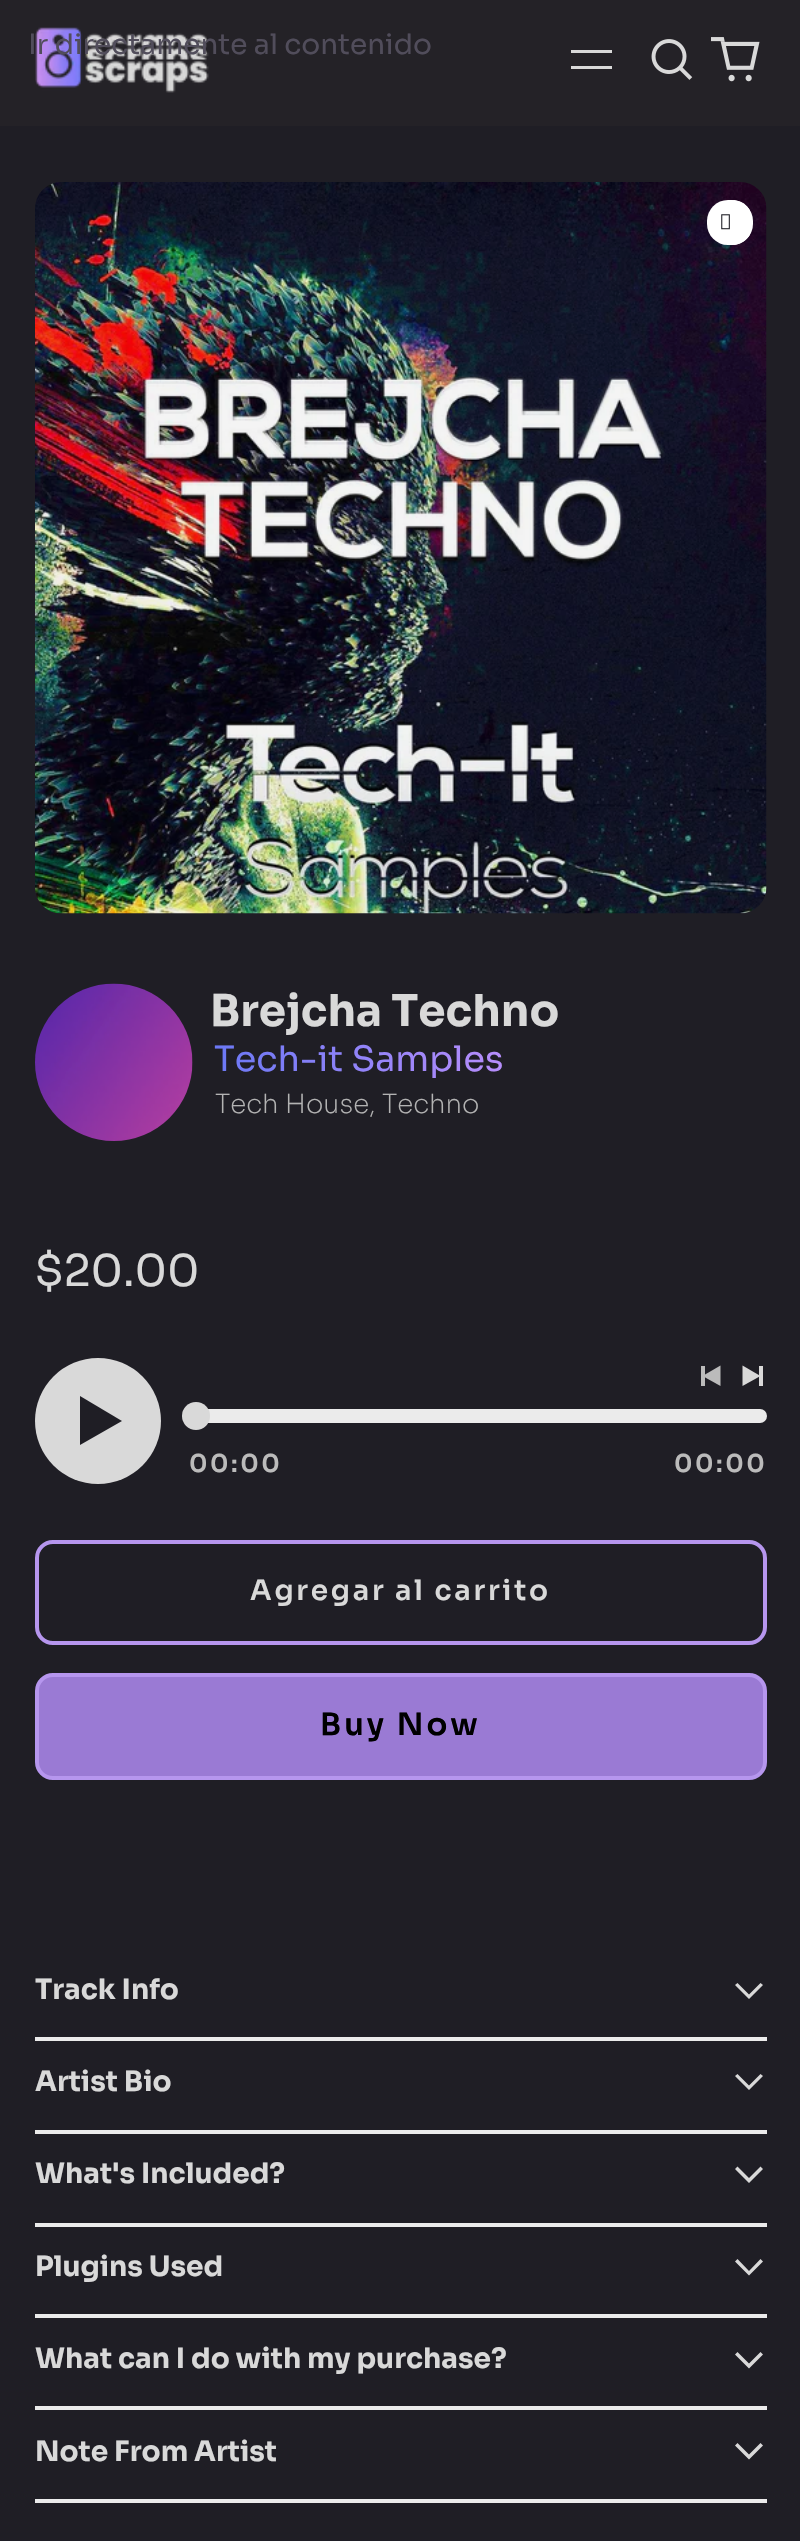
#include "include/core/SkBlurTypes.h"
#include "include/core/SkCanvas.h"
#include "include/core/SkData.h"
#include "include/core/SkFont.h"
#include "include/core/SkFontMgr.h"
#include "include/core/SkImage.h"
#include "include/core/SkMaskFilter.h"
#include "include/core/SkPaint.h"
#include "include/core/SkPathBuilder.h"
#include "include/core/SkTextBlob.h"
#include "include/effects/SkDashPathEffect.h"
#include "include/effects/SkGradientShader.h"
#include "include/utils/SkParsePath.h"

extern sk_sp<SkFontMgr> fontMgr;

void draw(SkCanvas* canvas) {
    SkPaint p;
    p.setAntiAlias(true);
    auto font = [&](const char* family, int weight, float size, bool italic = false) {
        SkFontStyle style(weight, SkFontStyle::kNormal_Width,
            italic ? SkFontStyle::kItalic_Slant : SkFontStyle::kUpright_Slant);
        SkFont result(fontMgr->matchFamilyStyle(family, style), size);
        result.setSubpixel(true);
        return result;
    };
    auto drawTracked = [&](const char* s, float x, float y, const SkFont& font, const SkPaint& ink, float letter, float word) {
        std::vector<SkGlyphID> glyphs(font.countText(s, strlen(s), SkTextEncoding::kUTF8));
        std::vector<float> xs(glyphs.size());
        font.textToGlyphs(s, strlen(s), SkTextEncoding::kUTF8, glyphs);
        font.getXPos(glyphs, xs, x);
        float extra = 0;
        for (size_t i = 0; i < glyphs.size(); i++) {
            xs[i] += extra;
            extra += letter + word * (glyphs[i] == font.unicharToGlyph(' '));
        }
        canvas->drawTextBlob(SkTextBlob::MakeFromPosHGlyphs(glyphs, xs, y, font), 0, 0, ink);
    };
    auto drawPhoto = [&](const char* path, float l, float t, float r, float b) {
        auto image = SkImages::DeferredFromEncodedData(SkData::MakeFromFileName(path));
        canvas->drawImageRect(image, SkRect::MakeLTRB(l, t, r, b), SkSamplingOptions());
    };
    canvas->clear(0xFF1F1E25);
    p.setColor(0xFF242227);
    canvas->drawRect(SkRect::MakeLTRB(0, 0, 800, 126), p);
    drawPhoto("media/1.png", 35, 27, 209, 93);
    canvas->save();
    canvas->clipRect(SkRect::MakeLTRB(571, 39, 613, 81));
    p.setColor(0xFFD9D9D9);
    canvas->drawPath(SkPathBuilder(SkPathFillType::kEvenOdd).moveTo(612, 66).lineTo(612, 69).lineTo(570, 69).lineTo(570, 66).close().moveTo(612, 50).lineTo(612, 53).lineTo(570, 53).lineTo(570, 50).close().detach(), p);
    canvas->restore();
    drawPhoto("media/2.png", 651, 39, 693, 80);
    drawPhoto("media/3.png", 711, 37, 760, 82);
    auto font1 = font("Sora", 400, 28);
    p.setColor(0xFF514D5B);
    canvas->drawString("Ir directamente al contenido", 28, 54, font1, p);
    drawPhoto("media/4.png", 35, 182, 767, 914);
    p.setColor(0xFFFFFFFF);
    canvas->drawRoundRect(SkRect::MakeLTRB(707, 200, 753, 245), 21, 21, p);
    canvas->save();
    canvas->clipPath(SkPathBuilder().moveTo(728, 200).lineTo(732, 200).cubicTo(743.5f, 200, 753, 209.5f, 753, 221).lineTo(753, 224).cubicTo(753, 235.5f, 743.5f, 245, 732, 245).lineTo(728, 245).cubicTo(716.5f, 245, 707, 235.5f, 707, 224).lineTo(707, 221).cubicTo(707, 209.5f, 716.5f, 200, 728, 200).close().detach(), true);
    canvas->drawRoundRect(SkRect::MakeLTRB(719, 200, 751, 245), 16, 16, p);
    canvas->restore();
    drawPhoto("media/5.png", 721, 214, 730, 230);
    drawPhoto("media/6.png", 35, 983, 193, 1141);
    auto font2 = font("Sora", 700, 43.75f);
    p.setColor(0xFFD9D9D9);
    canvas->drawString("Brejcha Techno", 210, 1026, font2, p);
    auto font3 = font("Sora", 400, 35);
    {
        const SkColor colors[] = {0xFFB78EFC, 0xFF6B78F5};
        const float stops[] = {0, 1};
        const SkPoint ends[] = {{503, 1060}, {214, 1060}};
        p.setShader(SkGradientShader::MakeLinear(ends, colors, stops, 2, SkTileMode::kClamp));
        p.setAlpha(255);
    }
    canvas->drawString("Tech-it Samples", 214, 1071, font3, p);
    auto font4 = font("Sora", 200, 26.25f);
    p.setShader(nullptr);
    p.setColor(0xFFB3B3B3);
    canvas->drawString("Tech House, Techno", 215, 1113, font4, p);
    auto font5 = font("Sora", 400, 43.75f);
    p.setColor(0xFFD9D9D9);
    canvas->drawString("$20.00", 35, 1286, font5, p);
    canvas->drawCircle(98, 1421, 63, p);
    p.setColor(0xFF1F1E25);
    canvas->drawPath(SkPathBuilder().moveTo(122, 1421).lineTo(80, 1445).lineTo(80, 1396).close().detach(), p);
    p.setColor(0xFFBBBBBB);
    canvas->drawPath(SkPathBuilder().moveTo(702.5f, 1376).lineTo(720.5f, 1386).lineTo(720.5f, 1365.5f).close().detach(), p);
    canvas->drawRect(SkRect::MakeLTRB(701, 1366, 705, 1386), p);
    p.setColor(0xFFD9D9D9);
    canvas->drawPath(SkPathBuilder().moveTo(760.5f, 1376).lineTo(742.5f, 1386).lineTo(742.5f, 1365.5f).close().detach(), p);
    canvas->drawRect(SkRect::MakeLTRB(759, 1366, 763, 1386), p);
    p.setColor(0xFFEBEBEB);
    canvas->drawRoundRect(SkRect::MakeLTRB(189, 1409, 767, 1423), 7, 7, p);
    p.setColor(0xFFD9D9D9);
    canvas->drawCircle(196, 1416, 14, p);
    auto font6 = font("Sora", 600, 24.5f);
    p.setColor(0xFFBBBBBB);
    drawTracked("00:00", 189, 1472, font6, p, 2.5f, 0);
    drawTracked("00:00", 674, 1472, font6, p, 2.5f, 0);
    p.setStyle(SkPaint::kStroke_Style);
    p.setStrokeWidth(4);
    p.setColor(0xFFB696EE);
    canvas->drawRoundRect(SkRect::MakeLTRB(37, 1542, 765, 1643), 16, 16, p);
    auto font7 = font("Sora", 600, 28);
    p.setStyle(SkPaint::kFill_Style);
    p.setColor(0xFFD9D9D9);
    drawTracked("Agregar al carrito", 250, 1600, font7, p, 2.75f, 0);
    p.setColor(0xFF9A7AD4);
    canvas->drawRoundRect(SkRect::MakeLTRB(37, 1675, 765, 1778), 16, 16, p);
    p.setStyle(SkPaint::kStroke_Style);
    p.setColor(0xFFB696EE);
    canvas->drawRoundRect(SkRect::MakeLTRB(37, 1675, 765, 1778), 16, 16, p);
    auto font8 = font("Sora", 600, 30.75f);
    p.setStyle(SkPaint::kFill_Style);
    p.setColor(0xFF000000);
    drawTracked("Buy Now", 320, 1735, font8, p, 3, 0);
    p.setColor(0xFFEBEBEB);
    canvas->drawRect(SkRect::MakeLTRB(35, 2037, 767, 2041), p);
    auto font9 = font("Sora", 700, 28);
    p.setColor(0xFFD9D9D9);
    canvas->drawString("Track Info", 35, 1999, font9, p);
    canvas->drawPath(SkPathBuilder(SkPathFillType::kEvenOdd).moveTo(760.5f, 1983).lineTo(763, 1985).lineTo(749, 1999).lineTo(735, 1985).lineTo(737.5f, 1983).lineTo(749, 1994.5f).close().detach(), p);
    p.setColor(0xFFEBEBEB);
    canvas->drawRect(SkRect::MakeLTRB(35, 2130, 767, 2134), p);
    p.setColor(0xFFD9D9D9);
    canvas->drawString("Artist Bio", 35, 2091, font9, p);
    canvas->drawPath(SkPathBuilder(SkPathFillType::kEvenOdd).moveTo(760.5f, 2074).lineTo(763, 2076).lineTo(749, 2090).lineTo(735, 2076).lineTo(737.5f, 2074).lineTo(749, 2085.5f).close().detach(), p);
    p.setColor(0xFFEBEBEB);
    canvas->drawRect(SkRect::MakeLTRB(35, 2223, 767, 2227), p);
    p.setColor(0xFFD9D9D9);
    canvas->drawString("What's Included?", 35, 2183, font9, p);
    canvas->drawPath(SkPathBuilder(SkPathFillType::kEvenOdd).moveTo(760.5f, 2166.5f).lineTo(763, 2169).lineTo(749, 2183).lineTo(735, 2169).lineTo(737.5f, 2166.5f).lineTo(749, 2178).close().detach(), p);
    p.setColor(0xFFEBEBEB);
    canvas->drawRect(SkRect::MakeLTRB(35, 2314, 767, 2318), p);
    p.setColor(0xFFD9D9D9);
    canvas->drawString("Plugins Used", 35, 2276, font9, p);
    canvas->drawPath(SkPathBuilder(SkPathFillType::kEvenOdd).moveTo(760.5f, 2259).lineTo(763, 2261.5f).lineTo(749, 2275.5f).lineTo(735, 2261.5f).lineTo(737.5f, 2259).lineTo(749, 2271).close().detach(), p);
    p.setColor(0xFFEBEBEB);
    canvas->drawRect(SkRect::MakeLTRB(35, 2406, 767, 2410), p);
    p.setColor(0xFFD9D9D9);
    canvas->drawString("What can I do with my purchase?", 35, 2368, font9, p);
    canvas->drawPath(SkPathBuilder(SkPathFillType::kEvenOdd).moveTo(760.5f, 2352).lineTo(763, 2354.5f).lineTo(749, 2368.5f).lineTo(735, 2354.5f).lineTo(737.5f, 2352).lineTo(749, 2363.5f).close().detach(), p);
    p.setColor(0xFFEBEBEB);
    canvas->drawRect(SkRect::MakeLTRB(35, 2499, 767, 2503), p);
    p.setColor(0xFFD9D9D9);
    canvas->drawString("Note From Artist", 35, 2461, font9, p);
    canvas->drawPath(SkPathBuilder(SkPathFillType::kEvenOdd).moveTo(760.5f, 2443).lineTo(763, 2445.5f).lineTo(749, 2459.5f).lineTo(735, 2445.5f).lineTo(737.5f, 2443).lineTo(749, 2454.5f).close().detach(), p);
}
